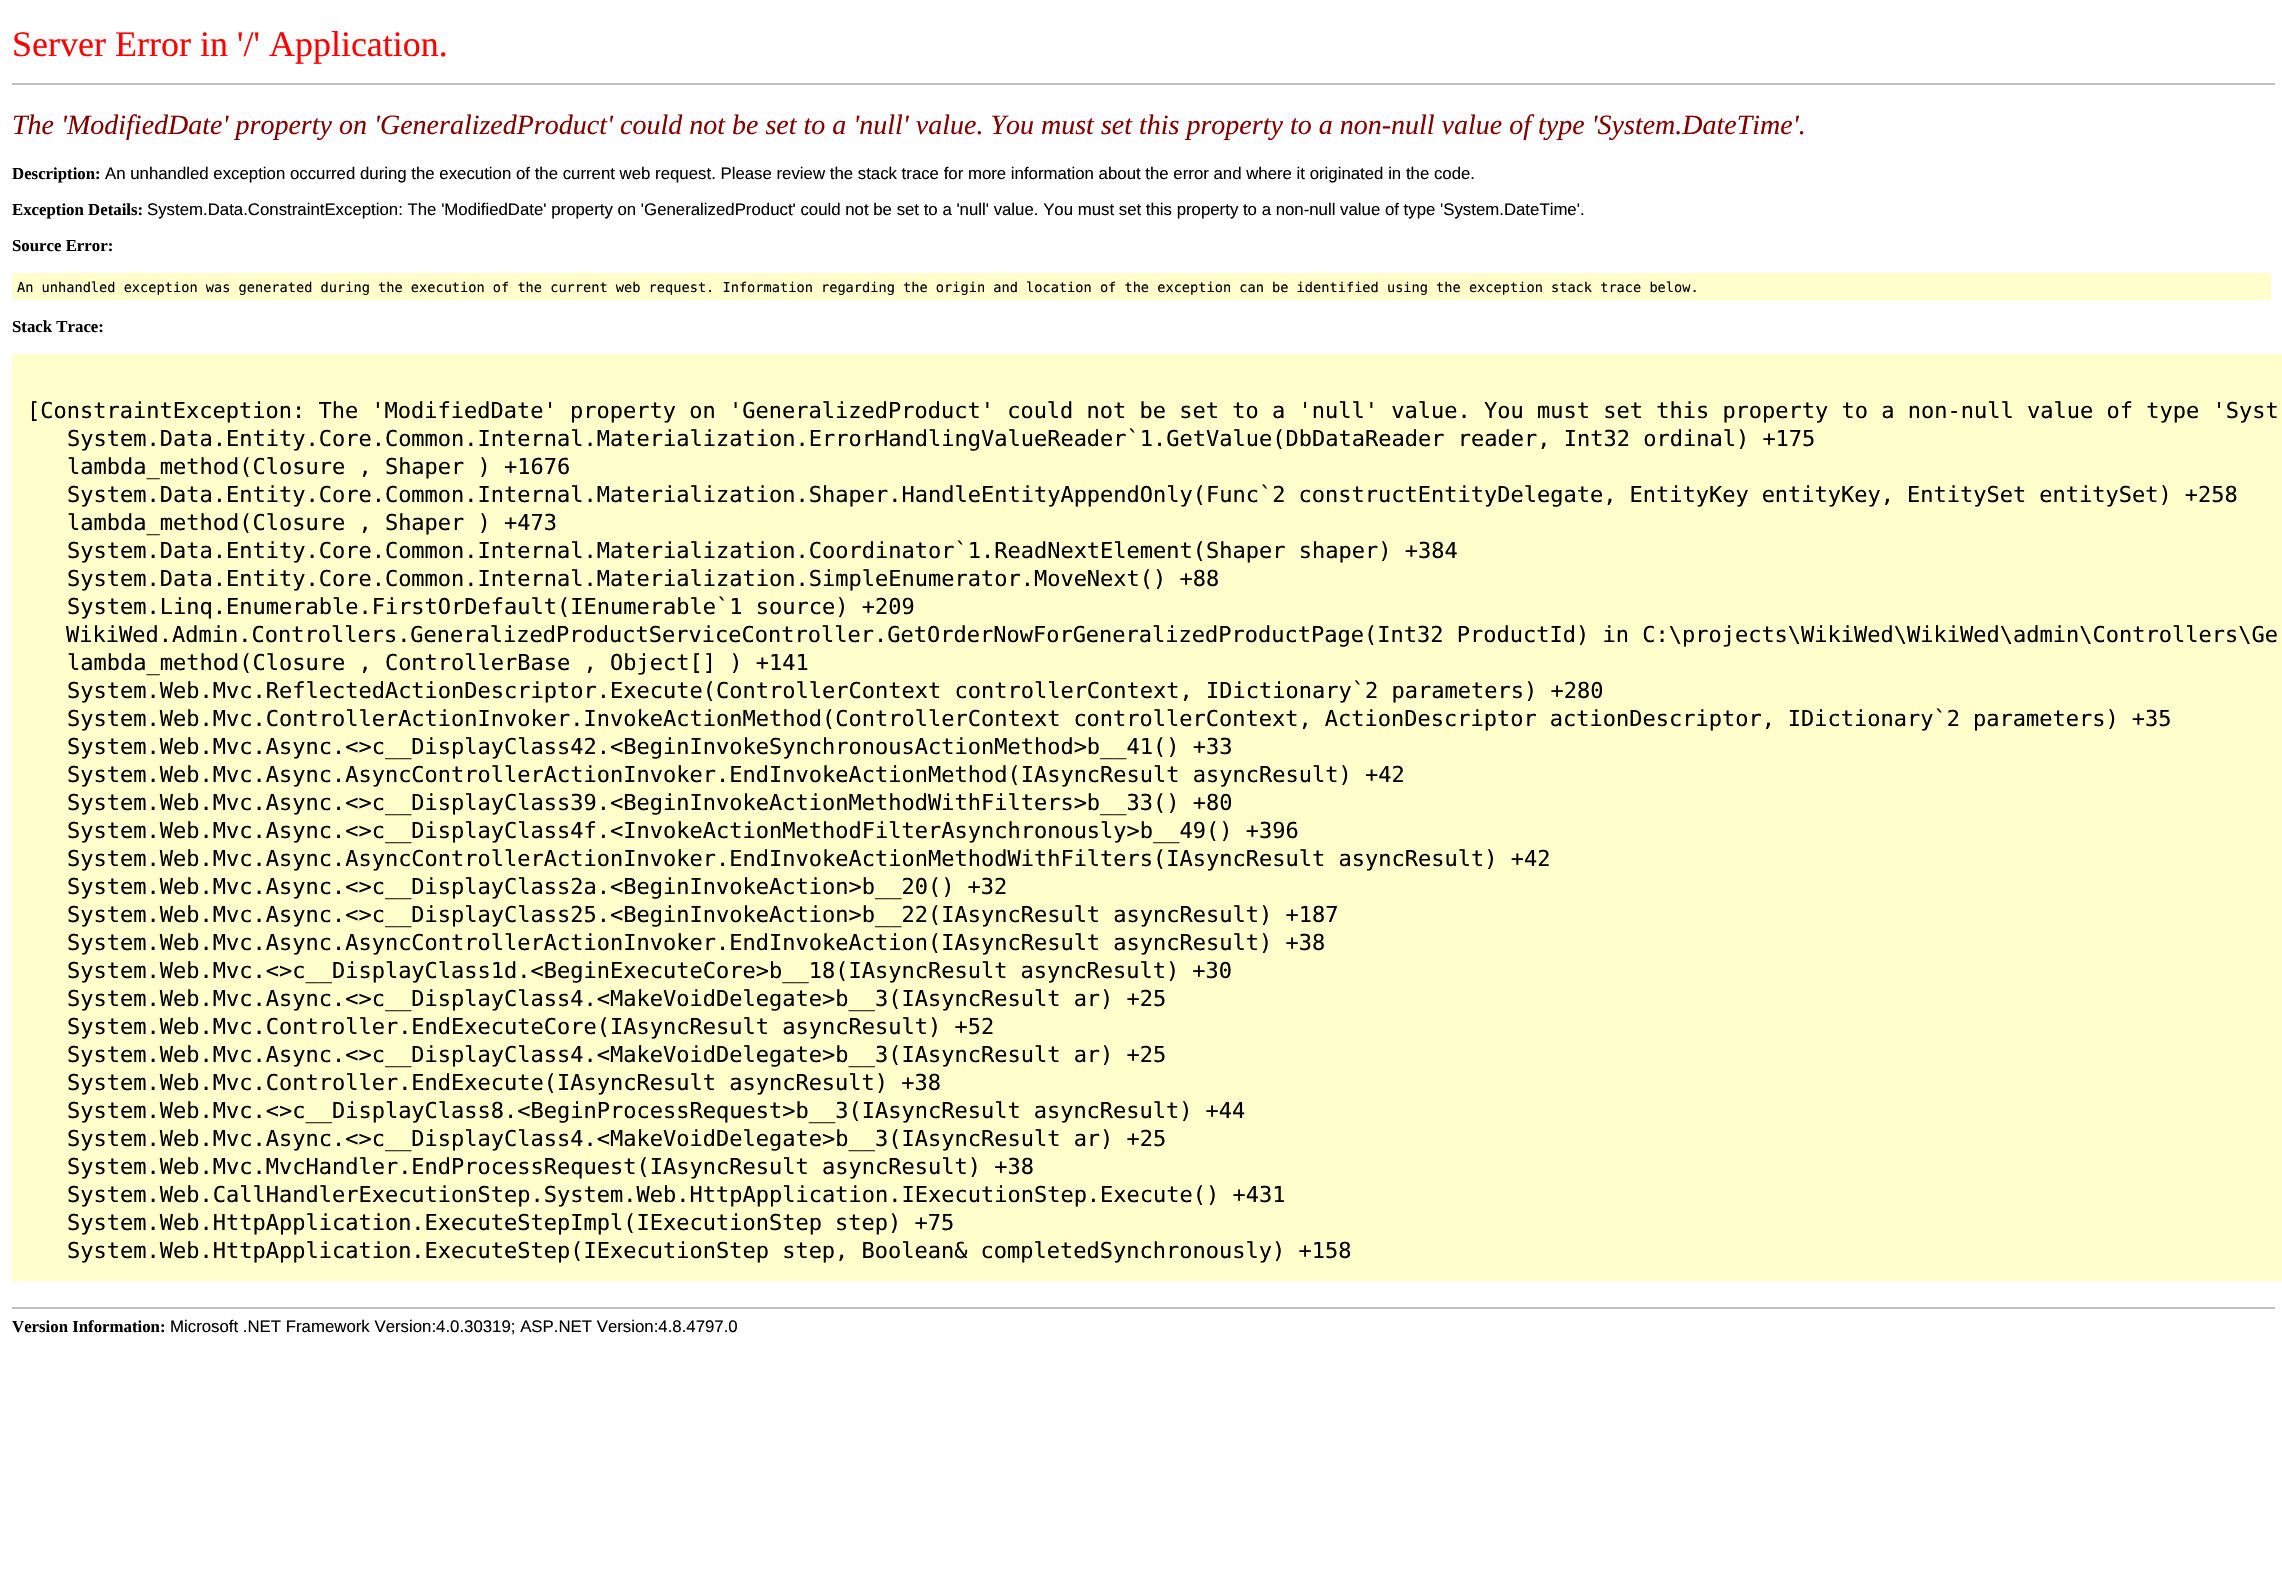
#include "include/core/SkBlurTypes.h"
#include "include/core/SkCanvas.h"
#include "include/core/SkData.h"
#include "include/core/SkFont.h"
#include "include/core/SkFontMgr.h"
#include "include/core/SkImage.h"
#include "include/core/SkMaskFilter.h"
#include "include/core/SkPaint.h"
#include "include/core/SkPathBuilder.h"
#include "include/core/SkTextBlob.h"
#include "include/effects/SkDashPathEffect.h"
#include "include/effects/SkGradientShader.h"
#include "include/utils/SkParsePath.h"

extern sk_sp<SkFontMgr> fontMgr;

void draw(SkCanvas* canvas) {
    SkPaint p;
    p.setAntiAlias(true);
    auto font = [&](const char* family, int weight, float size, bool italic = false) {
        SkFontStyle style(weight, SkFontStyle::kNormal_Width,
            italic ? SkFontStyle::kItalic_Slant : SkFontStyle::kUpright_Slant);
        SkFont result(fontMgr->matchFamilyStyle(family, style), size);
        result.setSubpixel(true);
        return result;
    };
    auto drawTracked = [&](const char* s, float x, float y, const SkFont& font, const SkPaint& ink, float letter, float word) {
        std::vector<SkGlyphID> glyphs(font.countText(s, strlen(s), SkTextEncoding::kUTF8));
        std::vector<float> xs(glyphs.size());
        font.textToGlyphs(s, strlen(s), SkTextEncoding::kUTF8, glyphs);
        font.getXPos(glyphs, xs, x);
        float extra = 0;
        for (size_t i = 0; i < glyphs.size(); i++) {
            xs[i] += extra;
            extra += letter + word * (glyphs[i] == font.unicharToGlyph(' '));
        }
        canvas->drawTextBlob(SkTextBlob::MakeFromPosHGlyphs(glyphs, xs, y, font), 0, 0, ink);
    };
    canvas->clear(0xFFFFFFFF);
    auto font1 = font("Liberation Serif", 400, 36);
    p.setColor(0xFFFF0000);
    canvas->drawString("Server Error in '/' Application.", 12, 56, font1, p);
    p.setColor(0xFFC0C0C0);
    canvas->drawRect(SkRect::MakeLTRB(12, 83, 2275, 85), p);
    auto font2 = font("Liberation Serif", 400, 28, true);
    p.setColor(0xFF800000);
    canvas->drawString("The 'ModifiedDate' property on 'GeneralizedProduct' could not be set to a 'null' value. You must set this property to a non-null value of type 'System.DateTime'.", 12, 134, font2, p);
    auto font3 = font("Liberation Serif", 700, 16.8f);
    p.setColor(0xFF000000);
    canvas->drawString("Description:", 12, 179, font3, p);
    auto font4 = font("Liberation Sans", 400, 16.8f);
    canvas->drawString("An unhandled exception occurred during the execution of the current web request. Please review the stack trace for more information about the error and where it originated in the code.", 105, 179, font4, p);
    canvas->drawString("Exception Details:", 12, 215, font3, p);
    canvas->drawString("System.Data.ConstraintException: The 'ModifiedDate' property on 'GeneralizedProduct' could not be set to a 'null' value. You must set this property to a non-null value of type 'System.DateTime'.", 147, 215, font4, p);
    canvas->drawString("Source Error:", 12, 251, font3, p);
    p.setColor(0xFFFFFFCC);
    canvas->drawRect(SkRect::MakeLTRB(12, 273, 2271, 300), p);
    auto font5 = font("DejaVu Sans Mono", 400, 13.65f);
    p.setColor(0xFF000000);
    drawTracked("An unhandled exception was generated during the execution of the current web request. Information regarding the origin and location of the exception can be identified using the exception stack trace below.", 17, 292, font5, p, 0, -0.1f);
    canvas->drawString("Stack Trace:", 12, 332, font3, p);
    p.setColor(0xFFFFFFCC);
    canvas->drawRect(SkRect::MakeLTRB(12, 354, 2282, 1281), p);
    auto font6 = font("DejaVu Sans Mono", 400, 22);
    p.setColor(0xFF000000);
    {
        const struct { const char* s; float x, y; } items[] = {
            {"[ConstraintException: The 'ModifiedDate' property on 'GeneralizedProduct' could not be set to a 'null' value. You must set this property to a non-null value of type 'Syst", 27, 418},
            {"System.Data.Entity.Core.Common.Internal.Materialization.ErrorHandlingValueReader`1.GetValue(DbDataReader reader, Int32 ordinal) +175", 67, 446},
            {"lambda_method(Closure , Shaper ) +1676", 67, 474},
        };
        for (auto [s, x, y] : items) {
            canvas->drawString(s, x, y, font6, p);
        }
    }
    drawTracked("System.Data.Entity.Core.Common.Internal.Materialization.Shaper.HandleEntityAppendOnly(Func`2 constructEntityDelegate, EntityKey entityKey, EntitySet entitySet) +258", 67, 502, font6, p, 0, -0.25f);
    {
        const struct { const char* s; float x, y; } items[] = {
            {"lambda_method(Closure , Shaper ) +473", 67, 530},
            {"System.Data.Entity.Core.Common.Internal.Materialization.Coordinator`1.ReadNextElement(Shaper shaper) +384", 67, 558},
            {"System.Data.Entity.Core.Common.Internal.Materialization.SimpleEnumerator.MoveNext() +88", 67, 586},
            {"System.Linq.Enumerable.FirstOrDefault(IEnumerable`1 source) +209", 67, 614},
            {"WikiWed.Admin.Controllers.GeneralizedProductServiceController.GetOrderNowForGeneralizedProductPage(Int32 ProductId) in C:\\projects\\WikiWed\\WikiWed\\admin\\Controllers\\Ge", 66, 642},
            {"lambda_method(Closure , ControllerBase , Object[] ) +141", 67, 670},
            {"System.Web.Mvc.ReflectedActionDescriptor.Execute(ControllerContext controllerContext, IDictionary`2 parameters) +280", 67, 698},
        };
        for (auto [s, x, y] : items) {
            canvas->drawString(s, x, y, font6, p);
        }
    }
    drawTracked("System.Web.Mvc.ControllerActionInvoker.InvokeActionMethod(ControllerContext controllerContext, ActionDescriptor actionDescriptor, IDictionary`2 parameters) +35", 67, 726, font6, p, 0, -0.25f);
    {
        const struct { const char* s; float x, y; } items[] = {
            {"System.Web.Mvc.Async.<>c__DisplayClass42.<BeginInvokeSynchronousActionMethod>b__41() +33", 67, 754},
            {"System.Web.Mvc.Async.AsyncControllerActionInvoker.EndInvokeActionMethod(IAsyncResult asyncResult) +42", 67, 782},
            {"System.Web.Mvc.Async.<>c__DisplayClass39.<BeginInvokeActionMethodWithFilters>b__33() +80", 67, 810},
            {"System.Web.Mvc.Async.<>c__DisplayClass4f.<InvokeActionMethodFilterAsynchronously>b__49() +396", 67, 838},
            {"System.Web.Mvc.Async.AsyncControllerActionInvoker.EndInvokeActionMethodWithFilters(IAsyncResult asyncResult) +42", 67, 866},
        };
        for (auto [s, x, y] : items) {
            canvas->drawString(s, x, y, font6, p);
        }
    }
    drawTracked("System.Web.Mvc.Async.<>c__DisplayClass2a.<BeginInvokeAction>b__20() +32", 67, 894, font6, p, 0, -0.25f);
    canvas->drawString("System.Web.Mvc.Async.<>c__DisplayClass25.<BeginInvokeAction>b__22(IAsyncResult asyncResult) +187", 67, 922, font6, p);
    canvas->drawString("System.Web.Mvc.Async.AsyncControllerActionInvoker.EndInvokeAction(IAsyncResult asyncResult) +38", 67, 950, font6, p);
    drawTracked("System.Web.Mvc.<>c__DisplayClass1d.<BeginExecuteCore>b__18(IAsyncResult asyncResult) +30", 67, 978, font6, p, 0, -0.25f);
    {
        const struct { const char* s; float x, y; } items[] = {
            {"System.Web.Mvc.Async.<>c__DisplayClass4.<MakeVoidDelegate>b__3(IAsyncResult ar) +25", 67, 1006},
            {"System.Web.Mvc.Controller.EndExecuteCore(IAsyncResult asyncResult) +52", 67, 1034},
            {"System.Web.Mvc.Async.<>c__DisplayClass4.<MakeVoidDelegate>b__3(IAsyncResult ar) +25", 67, 1062},
        };
        for (auto [s, x, y] : items) {
            canvas->drawString(s, x, y, font6, p);
        }
    }
    drawTracked("System.Web.Mvc.Controller.EndExecute(IAsyncResult asyncResult) +38", 67, 1090, font6, p, 0, -0.1f);
    drawTracked("System.Web.Mvc.<>c__DisplayClass8.<BeginProcessRequest>b__3(IAsyncResult asyncResult) +44", 67, 1118, font6, p, 0, -0.25f);
    {
        const struct { const char* s; float x, y; } items[] = {
            {"System.Web.Mvc.Async.<>c__DisplayClass4.<MakeVoidDelegate>b__3(IAsyncResult ar) +25", 67, 1146},
            {"System.Web.Mvc.MvcHandler.EndProcessRequest(IAsyncResult asyncResult) +38", 67, 1174},
            {"System.Web.CallHandlerExecutionStep.System.Web.HttpApplication.IExecutionStep.Execute() +431", 67, 1202},
        };
        for (auto [s, x, y] : items) {
            canvas->drawString(s, x, y, font6, p);
        }
    }
    drawTracked("System.Web.HttpApplication.ExecuteStepImpl(IExecutionStep step) +75", 67, 1230, font6, p, 0, -0.1f);
    drawTracked("System.Web.HttpApplication.ExecuteStep(IExecutionStep step, Boolean& completedSynchronously) +158", 67, 1258, font6, p, 0, -0.1f);
    p.setColor(0xFFC0C0C0);
    canvas->drawRect(SkRect::MakeLTRB(12, 1307, 2275, 1309), p);
    p.setColor(0xFF000000);
    canvas->drawString("Version Information:", 12, 1332, font3, p);
    canvas->drawString("Microsoft .NET Framework Version:4.0.30319; ASP.NET Version:4.8.4797.0", 170, 1332, font4, p);
}
